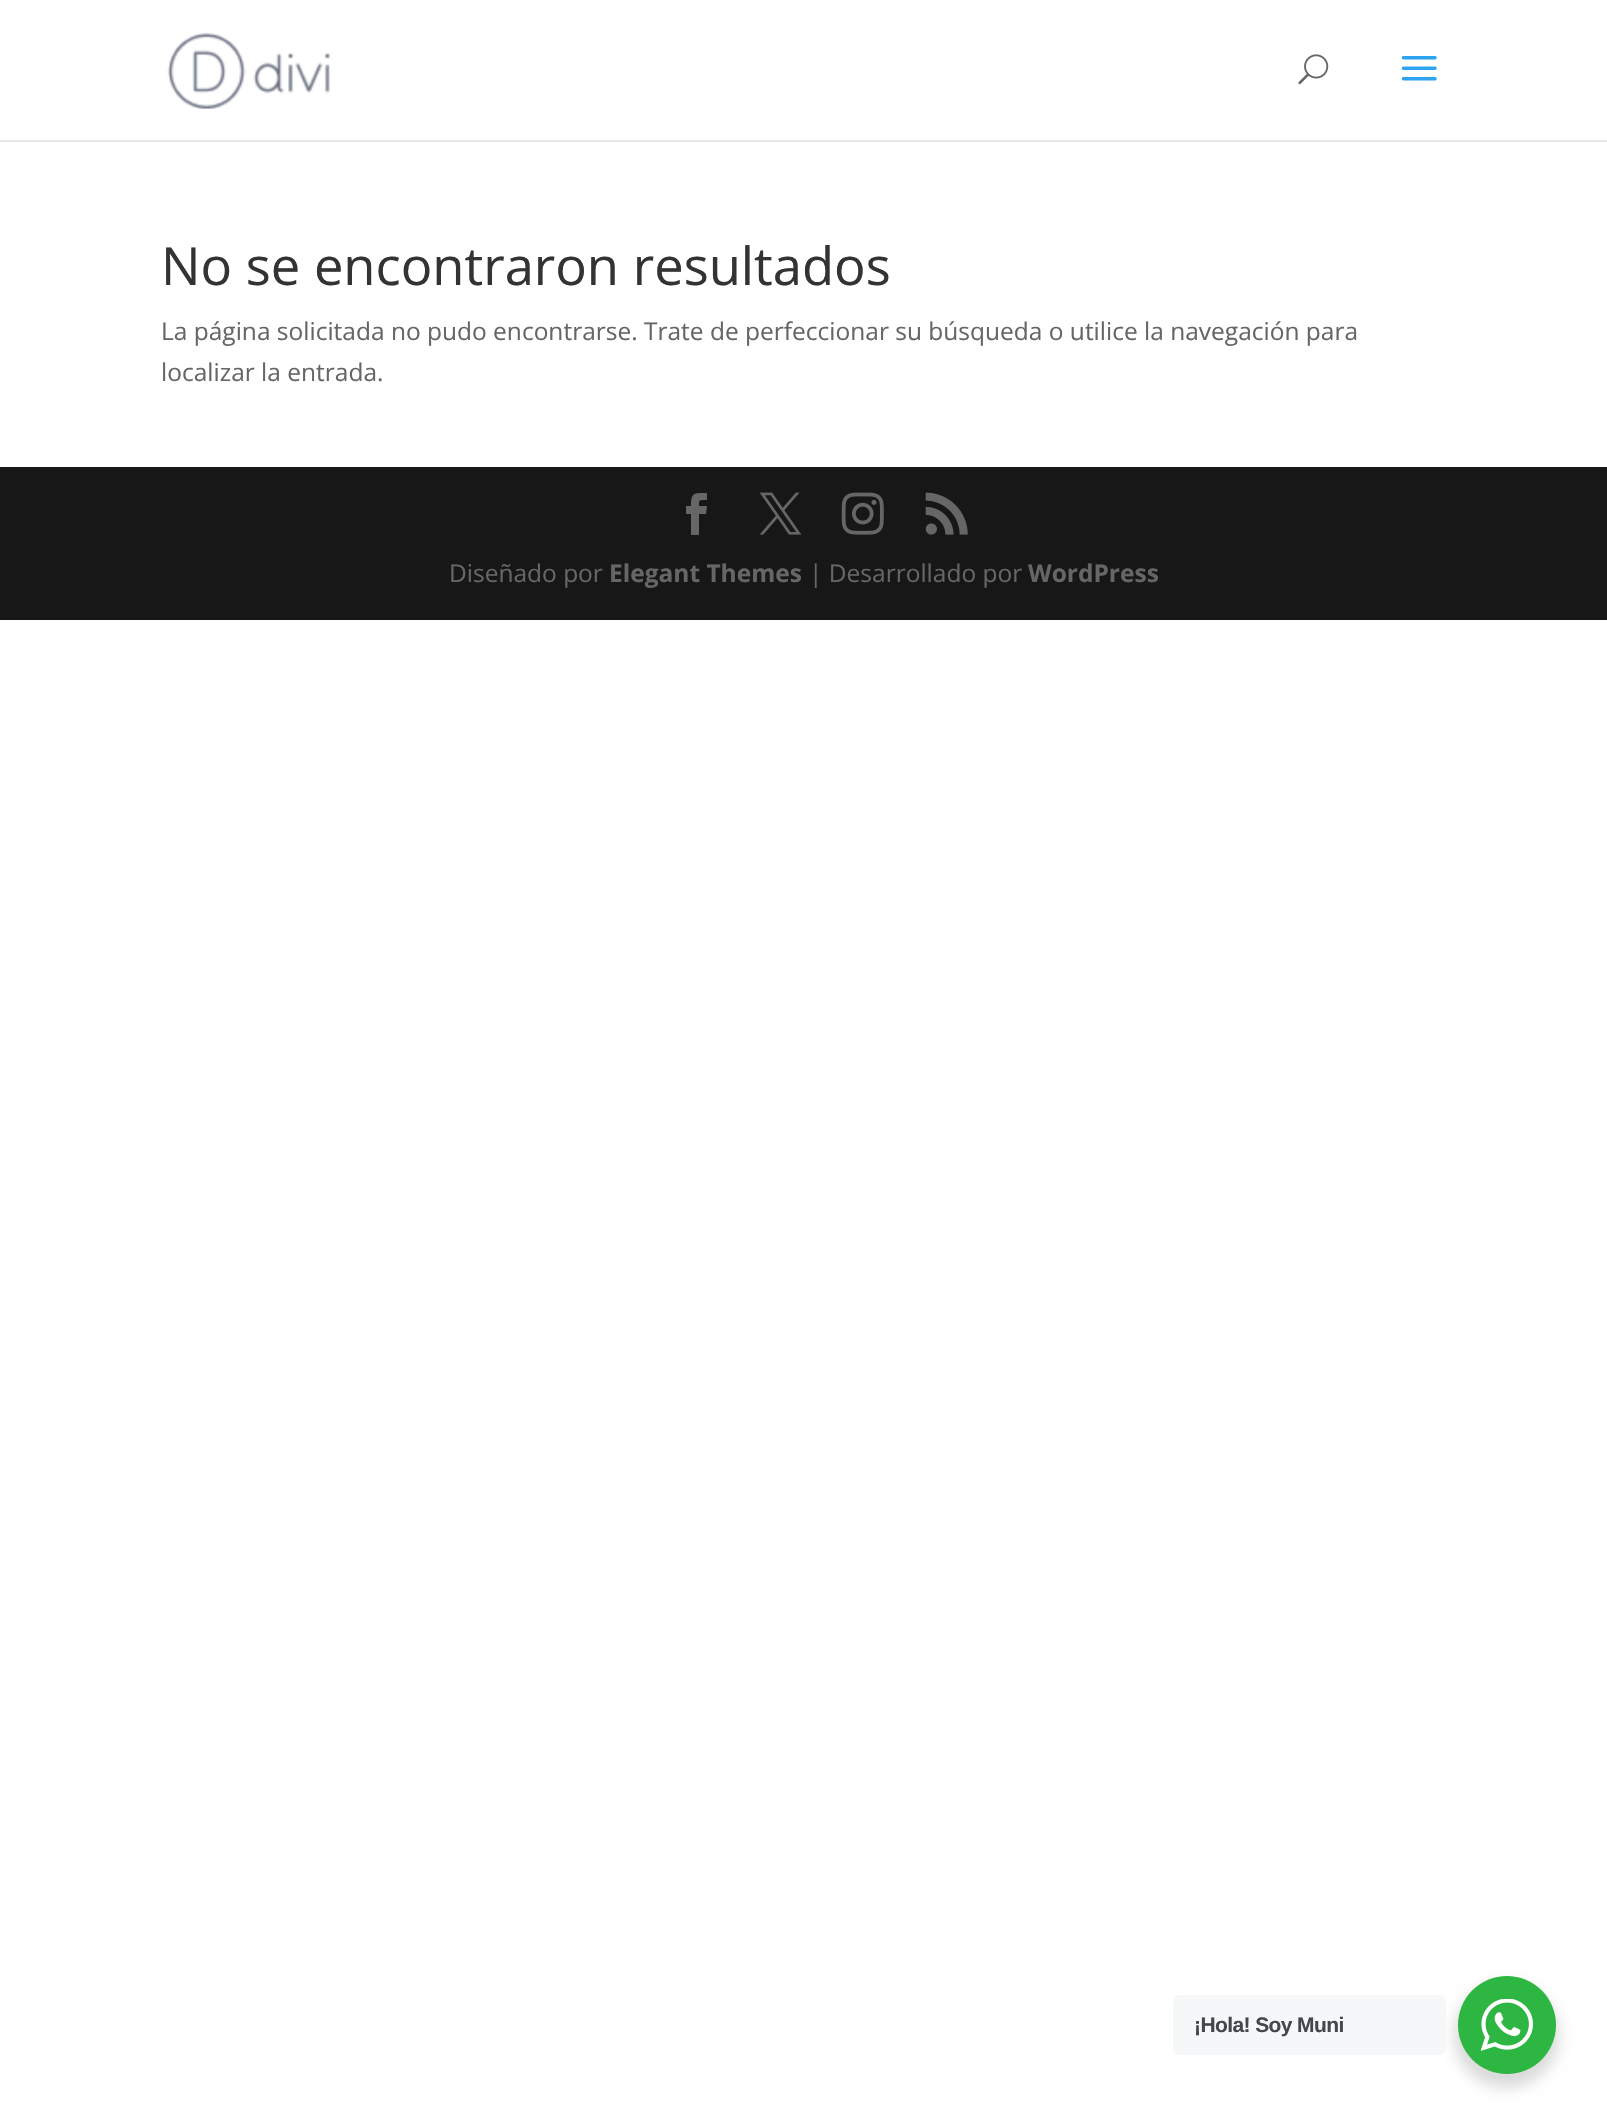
#include "include/core/SkBlurTypes.h"
#include "include/core/SkCanvas.h"
#include "include/core/SkData.h"
#include "include/core/SkFont.h"
#include "include/core/SkFontMgr.h"
#include "include/core/SkImage.h"
#include "include/core/SkMaskFilter.h"
#include "include/core/SkPaint.h"
#include "include/core/SkPathBuilder.h"
#include "include/core/SkTextBlob.h"
#include "include/effects/SkDashPathEffect.h"
#include "include/effects/SkGradientShader.h"
#include "include/utils/SkParsePath.h"

extern sk_sp<SkFontMgr> fontMgr;

void draw(SkCanvas* canvas) {
    SkPaint p;
    p.setAntiAlias(true);
    auto font = [&](const char* family, int weight, float size, bool italic = false) {
        SkFontStyle style(weight, SkFontStyle::kNormal_Width,
            italic ? SkFontStyle::kItalic_Slant : SkFontStyle::kUpright_Slant);
        SkFont result(fontMgr->matchFamilyStyle(family, style), size);
        result.setSubpixel(true);
        return result;
    };
    auto drawTracked = [&](const char* s, float x, float y, const SkFont& font, const SkPaint& ink, float letter, float word) {
        std::vector<SkGlyphID> glyphs(font.countText(s, strlen(s), SkTextEncoding::kUTF8));
        std::vector<float> xs(glyphs.size());
        font.textToGlyphs(s, strlen(s), SkTextEncoding::kUTF8, glyphs);
        font.getXPos(glyphs, xs, x);
        float extra = 0;
        for (size_t i = 0; i < glyphs.size(); i++) {
            xs[i] += extra;
            extra += letter + word * (glyphs[i] == font.unicharToGlyph(' '));
        }
        canvas->drawTextBlob(SkTextBlob::MakeFromPosHGlyphs(glyphs, xs, y, font), 0, 0, ink);
    };
    auto drawPhoto = [&](const char* path, float l, float t, float r, float b) {
        auto image = SkImages::DeferredFromEncodedData(SkData::MakeFromFileName(path));
        canvas->drawImageRect(image, SkRect::MakeLTRB(l, t, r, b), SkSamplingOptions());
    };
    canvas->clear(0xFFFFFFFF);
    p.setColor(0xFFE6E6E6);
    canvas->drawRect(SkRect::MakeLTRB(0, 140, 1607, 142), p);
    drawPhoto("media/1.png", 167, 32, 331, 109);
    drawPhoto("media/2.png", 1298, 54, 1329, 85);
    drawPhoto("media/3.png", 1401, 56, 1437, 81);
    auto font1 = font("Open Sans", 400, 52.5f);
    p.setColor(0xFF333333);
    canvas->drawString("No se encontraron resultados", 161, 285, font1, p);
    auto font2 = font("Open Sans", 400, 24.5f);
    p.setColor(0xFF666666);
    canvas->drawString("La página solicitada no pudo encontrarse. Trate de perfeccionar su búsqueda o utilice la navegación para", 161, 340, font2, p);
    canvas->drawString("localizar la entrada.", 161, 381, font2, p);
    p.setColor(0xFF171717);
    canvas->drawRect(SkRect::MakeLTRB(0, 467, 1607, 620), p);
    p.setColor(0xFF666666);
    canvas->drawPath(SkPathBuilder().moveTo(691, 535).lineTo(699, 535).lineTo(699, 514).lineTo(706, 514).lineTo(707, 506).lineTo(699, 506).cubicTo(699, 499, 699, 500, 707, 500).lineTo(707, 493).cubicTo(694, 493, 691, 492, 691, 506).lineTo(686, 506).lineTo(686, 514).lineTo(691, 514).close().detach(), p);
    drawPhoto("media/4.png", 759, 492, 802, 535);
    drawPhoto("media/5.png", 841, 492, 884, 535);
    drawPhoto("media/6.png", 925, 492, 968, 535);
    canvas->drawString("Diseñado por", 449, 582, font2, p);
    auto font3 = font("Open Sans", 700, 24.5f);
    canvas->drawString("Elegant Themes", 609, 582, font3, p);
    canvas->drawString("| Desarrollado por", 809, 582, font2, p);
    canvas->drawString("WordPress", 1028, 582, font3, p);
    p.setColor(0x24000000);
    p.setMaskFilter(SkMaskFilter::MakeBlur(kNormal_SkBlurStyle, 7));
    canvas->drawRoundRect(SkRect::MakeLTRB(1454, 1983, 1559, 2088), 52.5f, 52.5f, p);
    p.setMaskFilter(nullptr);
    p.setColor(0xFFF5F7F9);
    canvas->drawRoundRect(SkRect::MakeLTRB(1173, 1995, 1446, 2055), 7, 7, p);
    auto font4 = font("Liberation Sans", 700, 21);
    p.setColor(0xFF43474E);
    drawTracked("¡Hola! Soy Muni", 1194, 2032, font4, p, -0.6f, 0);
    p.setColor(0xFF2DB742);
    canvas->drawCircle(1507, 2025, 49, p);
    drawPhoto("media/7.png", 1481, 1999, 1533, 2051);
}
